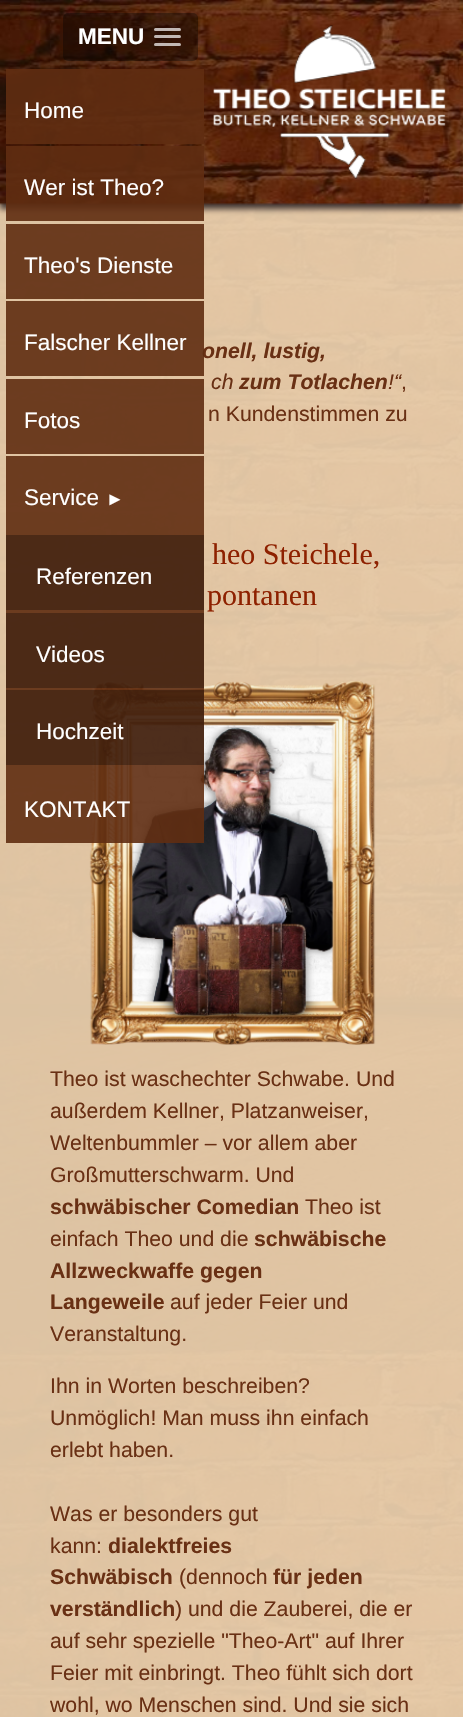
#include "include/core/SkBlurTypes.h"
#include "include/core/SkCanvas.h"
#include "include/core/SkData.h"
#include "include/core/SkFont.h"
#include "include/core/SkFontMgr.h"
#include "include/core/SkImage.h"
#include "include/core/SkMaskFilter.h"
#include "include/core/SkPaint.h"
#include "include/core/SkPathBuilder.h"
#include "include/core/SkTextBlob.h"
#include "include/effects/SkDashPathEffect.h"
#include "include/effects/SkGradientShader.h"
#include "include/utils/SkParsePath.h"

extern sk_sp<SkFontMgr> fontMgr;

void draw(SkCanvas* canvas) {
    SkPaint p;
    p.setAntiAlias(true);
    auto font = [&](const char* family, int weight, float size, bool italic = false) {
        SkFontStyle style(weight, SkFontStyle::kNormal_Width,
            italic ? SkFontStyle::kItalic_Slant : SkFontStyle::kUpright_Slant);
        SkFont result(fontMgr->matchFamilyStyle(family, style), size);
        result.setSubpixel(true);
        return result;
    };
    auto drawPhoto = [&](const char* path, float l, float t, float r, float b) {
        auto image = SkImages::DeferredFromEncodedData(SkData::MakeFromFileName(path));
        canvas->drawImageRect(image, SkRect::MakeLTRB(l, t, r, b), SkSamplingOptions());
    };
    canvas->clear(0xFFFFFFFF);
    drawPhoto("media/1.png", 0, 0, 463, 1717);
    p.setColor(0xBF0C050D);
    p.setMaskFilter(SkMaskFilter::MakeBlur(kNormal_SkBlurStyle, 3));
    canvas->drawRect(SkRect::MakeLTRB(0, 5, 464, 209), p);
    p.setMaskFilter(nullptr);
    canvas->save();
    canvas->clipRect(SkRect::MakeLTRB(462, 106, 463, 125));
    p.setColor(0x99000000);
    p.setMaskFilter(SkMaskFilter::MakeBlur(kNormal_SkBlurStyle, 12.5f));
    canvas->drawRect(SkRect::MakeLTRB(0, 125, 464, 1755), p);
    p.setMaskFilter(nullptr);
    canvas->restore();
    drawPhoto("media/2.png", 0, 0, 463, 205);
    drawPhoto("media/3.png", 213, 25, 446, 179);
    p.setColor(0x59000000);
    canvas->drawRoundRect(SkRect::MakeLTRB(63, 13, 198, 61), 5, 5, p);
    auto font1 = font("Liberation Sans", 700, 22.5f);
    p.setColor(0xFFFFFFFF);
    canvas->drawString("MENU", 78, 44, font1, p);
    p.setColor(0xB3FFFFFF);
    canvas->drawRoundRect(SkRect::MakeLTRB(154, 28, 181, 31), 1.5f, 1.5f, p);
    canvas->drawRoundRect(SkRect::MakeLTRB(154, 35, 181, 38), 1.5f, 1.5f, p);
    canvas->drawRoundRect(SkRect::MakeLTRB(154, 43, 181, 46), 1.5f, 1.5f, p);
    p.setColor(0xE65F2C11);
    canvas->drawRect(SkRect::MakeLTRB(6, 69, 204, 144), p);
    auto font2 = font("Liberation Sans", 400, 22.5f);
    p.setColor(0xFFFFFFFF);
    canvas->drawString("Home", 24, 118, font2, p);
    p.setColor(0xE65F2C11);
    canvas->drawRect(SkRect::MakeLTRB(6, 146, 204, 221), p);
    p.setColor(0xFFFFFFFF);
    canvas->drawString("Wer ist Theo?", 24, 195, font2, p);
    p.setColor(0xE65F2C11);
    canvas->drawRect(SkRect::MakeLTRB(6, 224, 204, 299), p);
    p.setColor(0xFFFFFFFF);
    canvas->drawString("Theo's Dienste", 24, 273, font2, p);
    auto font3 = font("Liberation Sans", 700, 21.25f, true);
    p.setColor(0xFF693014);
    canvas->drawString("onell, lustig,", 202, 358, font3, p);
    p.setColor(0xE65F2C11);
    canvas->drawRect(SkRect::MakeLTRB(6, 301, 204, 376), p);
    p.setColor(0xFFFFFFFF);
    canvas->drawString("Falscher Kellner", 24, 350, font2, p);
    p.setColor(0xE65F2C11);
    canvas->drawRect(SkRect::MakeLTRB(6, 379, 204, 454), p);
    p.setColor(0xFFFFFFFF);
    canvas->drawString("Fotos", 24, 428, font2, p);
    drawPhoto("media/4.png", 89, 681, 376, 1045);
    p.setColor(0xE65F2C11);
    canvas->drawRect(SkRect::MakeLTRB(6, 456, 204, 768), p);
    p.setColor(0xFFFFFFFF);
    canvas->drawString("Service", 24, 505, font2, p);
    auto font4 = font("Liberation Sans", 400, 18);
    canvas->drawString("►", 106, 505, font4, p);
    p.setColor(0x4D000000);
    canvas->drawRect(SkRect::MakeLTRB(6, 535, 204, 610), p);
    p.setColor(0xFFFFFFFF);
    canvas->drawString("Referenzen", 36, 584, font2, p);
    p.setColor(0x4D000000);
    canvas->drawRect(SkRect::MakeLTRB(6, 613, 204, 688), p);
    p.setColor(0xFFFFFFFF);
    canvas->drawString("Videos", 36, 662, font2, p);
    p.setColor(0x4D000000);
    canvas->drawRect(SkRect::MakeLTRB(6, 690, 204, 765), p);
    p.setColor(0xFFFFFFFF);
    canvas->drawString("Hochzeit", 36, 739, font2, p);
    p.setColor(0xE65F2C11);
    canvas->drawRect(SkRect::MakeLTRB(6, 768, 204, 843), p);
    p.setColor(0xFFFFFFFF);
    canvas->drawString("KONTAKT", 24, 817, font2, p);
    auto font5 = font("Liberation Sans", 400, 21.25f, true);
    p.setColor(0xFF693014);
    canvas->drawString("ch", 211, 389, font5, p);
    canvas->drawString("zum Totlachen", 239, 389, font3, p);
    canvas->drawString("!“", 388, 389, font5, p);
    auto font6 = font("Liberation Sans", 400, 21.25f);
    canvas->drawString(",", 401, 389, font6, p);
    canvas->drawString("n Kundenstimmen zu", 208, 421, font6, p);
    auto font7 = font("Liberation Serif", 400, 30);
    p.setColor(0xFF8E2100);
    canvas->drawString("heo Steichele,", 212, 564, font7, p);
    canvas->drawString("pontanen", 207, 605, font7, p);
    p.setColor(0xFF693014);
    {
        const struct { const char* s; float x, y; } items[] = {
            {"Theo ist waschechter Schwabe. Und", 50, 1086},
            {"außerdem Kellner, Platzanweiser,", 50, 1118},
            {"Weltenbummler – vor allem aber", 50, 1150},
            {"Großmutterschwarm. Und", 50, 1182},
        };
        for (auto [s, x, y] : items) {
            canvas->drawString(s, x, y, font6, p);
        }
    }
    auto font8 = font("Liberation Sans", 700, 21.25f);
    canvas->drawString("schwäbischer Comedian", 50, 1214, font8, p);
    canvas->drawString("Theo ist", 305, 1214, font6, p);
    canvas->drawString("einfach Theo und die", 50, 1246, font6, p);
    {
        const struct { const char* s; float x, y; } items[] = {
            {"schwäbische", 254, 1246},
            {"Allzweckwaffe gegen", 50, 1278},
            {"Langeweile", 50, 1309},
        };
        for (auto [s, x, y] : items) {
            canvas->drawString(s, x, y, font8, p);
        }
    }
    {
        const struct { const char* s; float x, y; } items[] = {
            {"auf jeder Feier und", 170, 1309},
            {"Veranstaltung.", 50, 1341},
            {"Ihn in Worten beschreiben?", 50, 1393},
            {"Unmöglich! Man muss ihn einfach", 50, 1425},
            {"erlebt haben.", 50, 1457},
            {"Was er besonders gut", 50, 1521},
            {"kann:", 50, 1553},
        };
        for (auto [s, x, y] : items) {
            canvas->drawString(s, x, y, font6, p);
        }
    }
    canvas->drawString("dialektfreies", 108, 1553, font8, p);
    canvas->drawString("Schwäbisch", 50, 1584, font8, p);
    canvas->drawString("(dennoch", 179, 1584, font6, p);
    canvas->drawString("für jeden", 273, 1584, font8, p);
    canvas->drawString("verständlich", 50, 1616, font8, p);
    {
        const struct { const char* s; float x, y; } items[] = {
            {") und die Zauberei, die er", 175, 1616},
            {"auf sehr spezielle \"Theo-Art\" auf Ihrer", 50, 1648},
            {"Feier mit einbringt. Theo fühlt sich dort", 50, 1680},
            {"wohl, wo Menschen sind. Und sie sich", 50, 1712},
        };
        for (auto [s, x, y] : items) {
            canvas->drawString(s, x, y, font6, p);
        }
    }
}
